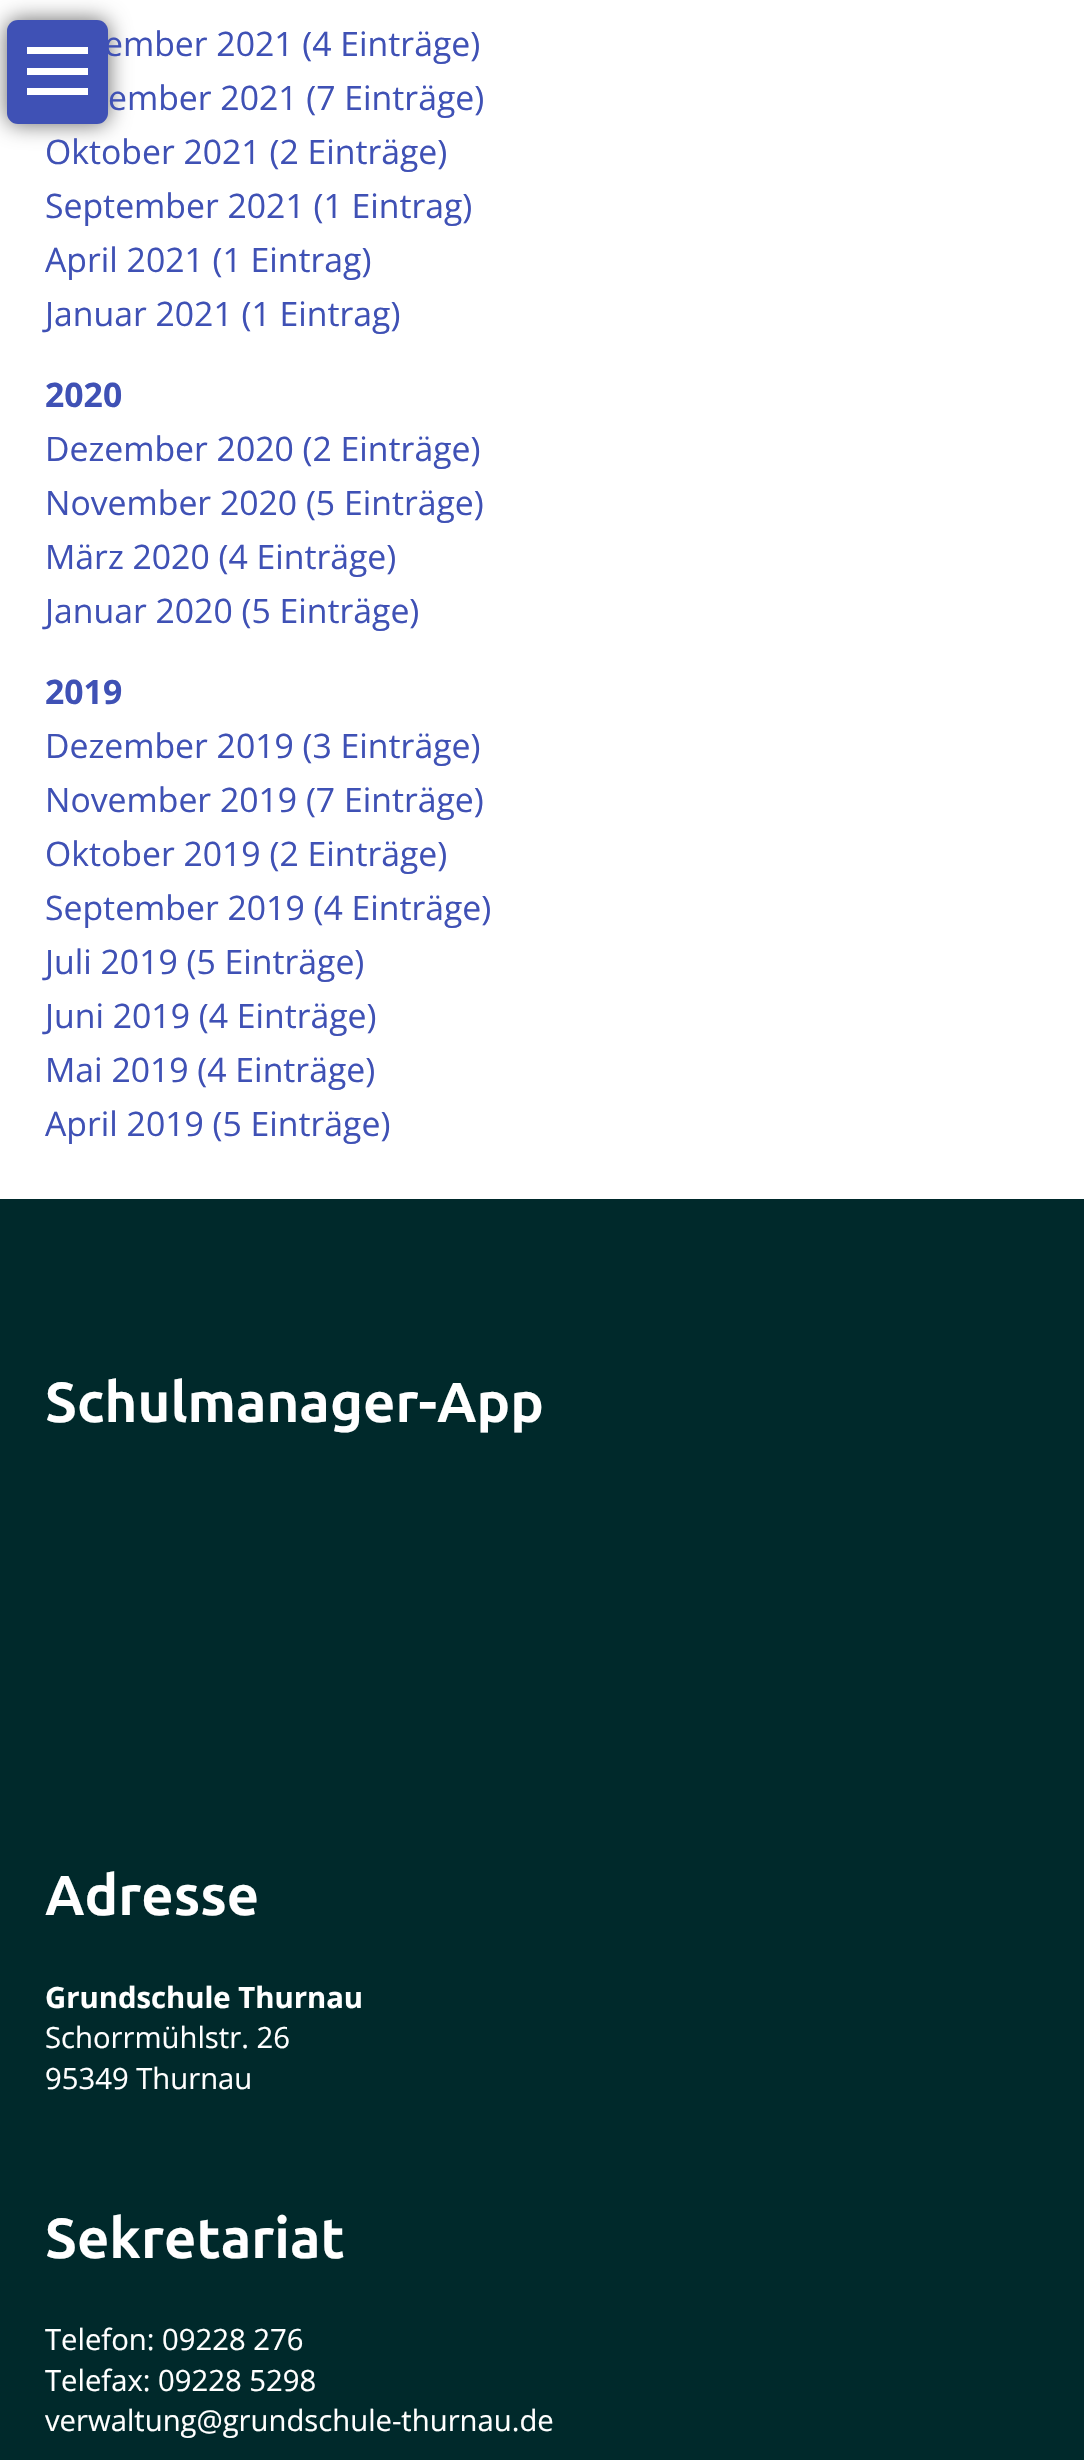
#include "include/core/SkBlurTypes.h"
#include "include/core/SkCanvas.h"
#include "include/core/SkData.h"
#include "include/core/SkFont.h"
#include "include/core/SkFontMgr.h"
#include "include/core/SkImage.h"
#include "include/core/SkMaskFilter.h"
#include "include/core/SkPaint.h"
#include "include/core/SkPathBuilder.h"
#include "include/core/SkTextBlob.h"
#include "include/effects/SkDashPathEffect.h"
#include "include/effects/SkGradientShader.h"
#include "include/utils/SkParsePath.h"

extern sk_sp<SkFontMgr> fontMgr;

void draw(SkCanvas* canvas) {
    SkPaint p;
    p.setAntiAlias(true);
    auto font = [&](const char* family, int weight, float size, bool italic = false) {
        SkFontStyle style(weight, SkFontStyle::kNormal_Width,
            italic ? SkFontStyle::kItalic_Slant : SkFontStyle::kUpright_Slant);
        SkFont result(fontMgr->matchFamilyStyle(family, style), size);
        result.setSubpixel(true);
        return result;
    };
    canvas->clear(0xFFFFFFFF);
    p.setColor(0x99000000);
    p.setMaskFilter(SkMaskFilter::MakeBlur(kNormal_SkBlurStyle, 11));
    canvas->drawRoundRect(SkRect::MakeLTRB(7, 20, 108, 124), 11, 11, p);
    p.setMaskFilter(nullptr);
    p.setColor(0xFF3F51B5);
    canvas->drawRoundRect(SkRect::MakeLTRB(7, 20, 108, 124), 11, 11, p);
    {
        const struct { float l, t, r, b; SkColor color; } items[] = {
            {27, 47, 88, 54, 0xFFFFFFFF},
            {27, 68, 88, 75, 0xFFFFFFFF},
            {27, 88, 88, 95, 0xFFFFFFFF},
        };
        for (auto [l, t, r, b, color] : items) {
            p.setColor(color);
            canvas->drawRect(SkRect::MakeLTRB(l, t, r, b), p);
        }
    }
    auto font1 = font("Open Sans", 400, 33.75f);
    p.setColor(0xFF3F51B5);
    {
        const struct { const char* s; float x, y; } items[] = {
            {"ember 2021 (4 Einträge)", 104, 56},
            {"ember 2021 (7 Einträge)", 108, 110},
            {"Oktober 2021 (2 Einträge)", 45, 164},
            {"September 2021 (1 Eintrag)", 45, 218},
            {"April 2021 (1 Eintrag)", 45, 272},
            {"Januar 2021 (1 Eintrag)", 45, 326},
        };
        for (auto [s, x, y] : items) {
            canvas->drawString(s, x, y, font1, p);
        }
    }
    auto font2 = font("Open Sans", 700, 33.75f);
    canvas->drawString("2020", 45, 407, font2, p);
    {
        const struct { const char* s; float x, y; } items[] = {
            {"Dezember 2020 (2 Einträge)", 45, 461},
            {"November 2020 (5 Einträge)", 45, 515},
            {"März 2020 (4 Einträge)", 45, 569},
            {"Januar 2020 (5 Einträge)", 45, 623},
        };
        for (auto [s, x, y] : items) {
            canvas->drawString(s, x, y, font1, p);
        }
    }
    canvas->drawString("2019", 45, 704, font2, p);
    {
        const struct { const char* s; float x, y; } items[] = {
            {"Dezember 2019 (3 Einträge)", 45, 758},
            {"November 2019 (7 Einträge)", 45, 812},
            {"Oktober 2019 (2 Einträge)", 45, 866},
            {"September 2019 (4 Einträge)", 45, 920},
            {"Juli 2019 (5 Einträge)", 45, 974},
            {"Juni 2019 (4 Einträge)", 45, 1028},
            {"Mai 2019 (4 Einträge)", 45, 1082},
            {"April 2019 (5 Einträge)", 45, 1136},
        };
        for (auto [s, x, y] : items) {
            canvas->drawString(s, x, y, font1, p);
        }
    }
    p.setColor(0xFF00292B);
    canvas->drawRect(SkRect::MakeLTRB(0, 1199, 1084, 2460), p);
    auto font3 = font("Ubuntu", 700, 56.25f);
    p.setColor(0xFFFFFFFF);
    canvas->drawString("Schulmanager-App", 45, 1422, font3, p);
    canvas->drawString("Adresse", 45, 1915, font3, p);
    auto font4 = font("Open Sans", 700, 29.25f);
    canvas->drawString("Grundschule Thurnau", 45, 2008, font4, p);
    auto font5 = font("Open Sans", 400, 29.25f);
    canvas->drawString("Schorrmühlstr. 26", 45, 2048, font5, p);
    canvas->drawString("95349 Thurnau", 45, 2089, font5, p);
    canvas->drawString("Sekretariat", 45, 2258, font3, p);
    {
        const struct { const char* s; float x, y; } items[] = {
            {"Telefon: 09228 276", 45, 2350},
            {"Telefax: 09228 5298", 45, 2391},
            {"verwaltung@grundschule-thurnau.de", 45, 2431},
        };
        for (auto [s, x, y] : items) {
            canvas->drawString(s, x, y, font5, p);
        }
    }
}
